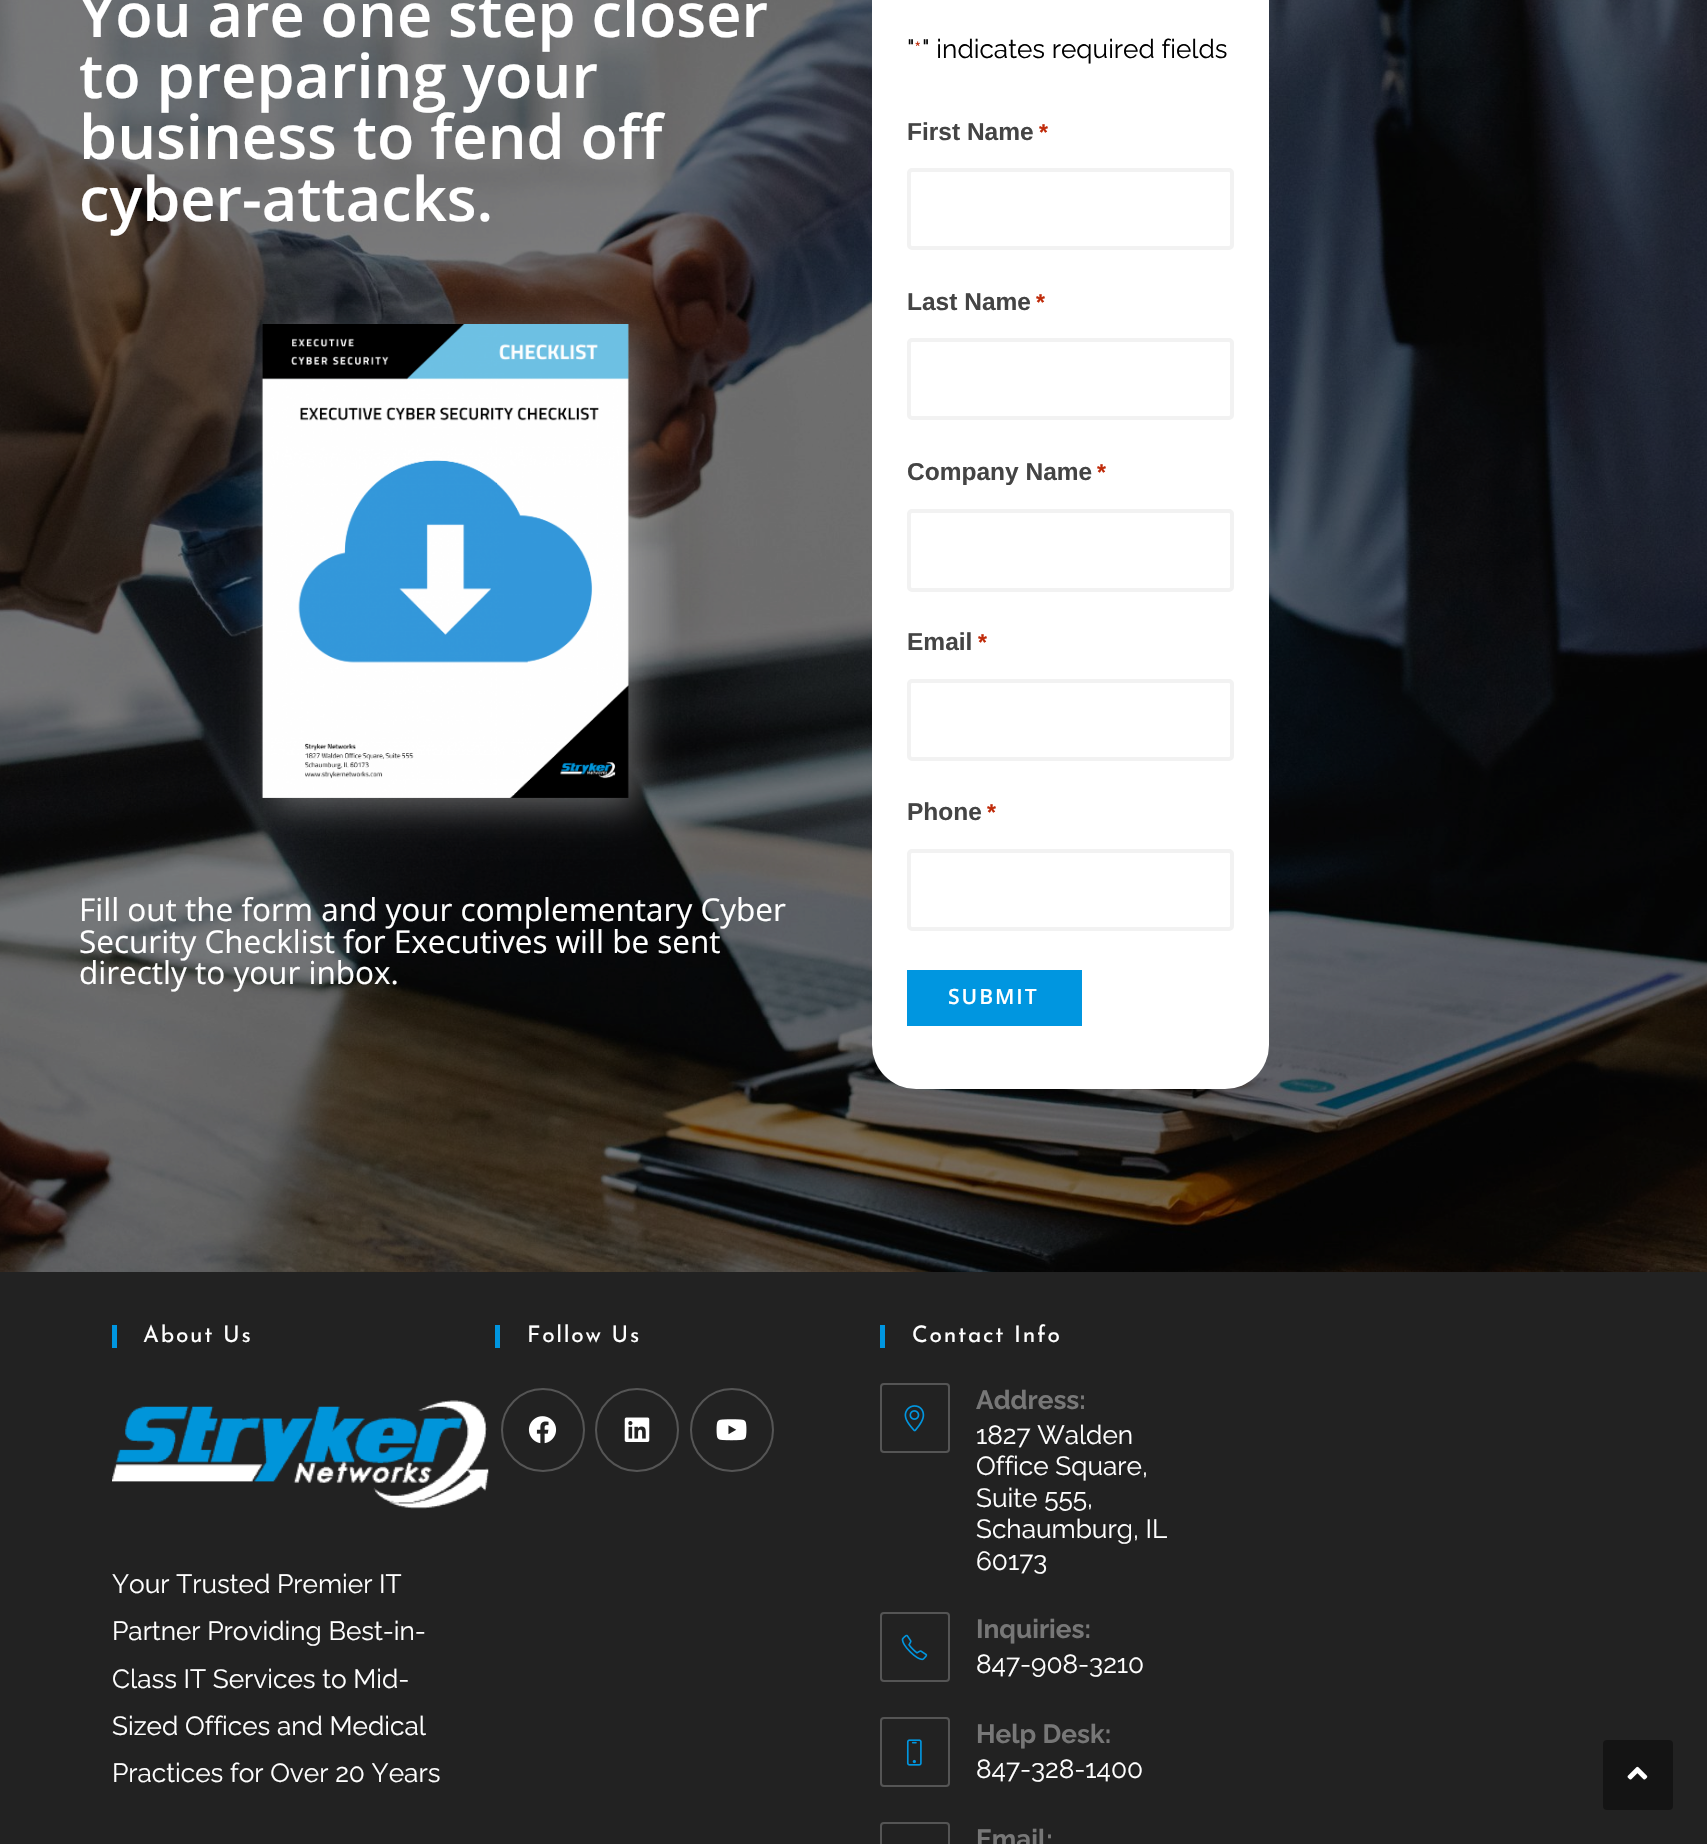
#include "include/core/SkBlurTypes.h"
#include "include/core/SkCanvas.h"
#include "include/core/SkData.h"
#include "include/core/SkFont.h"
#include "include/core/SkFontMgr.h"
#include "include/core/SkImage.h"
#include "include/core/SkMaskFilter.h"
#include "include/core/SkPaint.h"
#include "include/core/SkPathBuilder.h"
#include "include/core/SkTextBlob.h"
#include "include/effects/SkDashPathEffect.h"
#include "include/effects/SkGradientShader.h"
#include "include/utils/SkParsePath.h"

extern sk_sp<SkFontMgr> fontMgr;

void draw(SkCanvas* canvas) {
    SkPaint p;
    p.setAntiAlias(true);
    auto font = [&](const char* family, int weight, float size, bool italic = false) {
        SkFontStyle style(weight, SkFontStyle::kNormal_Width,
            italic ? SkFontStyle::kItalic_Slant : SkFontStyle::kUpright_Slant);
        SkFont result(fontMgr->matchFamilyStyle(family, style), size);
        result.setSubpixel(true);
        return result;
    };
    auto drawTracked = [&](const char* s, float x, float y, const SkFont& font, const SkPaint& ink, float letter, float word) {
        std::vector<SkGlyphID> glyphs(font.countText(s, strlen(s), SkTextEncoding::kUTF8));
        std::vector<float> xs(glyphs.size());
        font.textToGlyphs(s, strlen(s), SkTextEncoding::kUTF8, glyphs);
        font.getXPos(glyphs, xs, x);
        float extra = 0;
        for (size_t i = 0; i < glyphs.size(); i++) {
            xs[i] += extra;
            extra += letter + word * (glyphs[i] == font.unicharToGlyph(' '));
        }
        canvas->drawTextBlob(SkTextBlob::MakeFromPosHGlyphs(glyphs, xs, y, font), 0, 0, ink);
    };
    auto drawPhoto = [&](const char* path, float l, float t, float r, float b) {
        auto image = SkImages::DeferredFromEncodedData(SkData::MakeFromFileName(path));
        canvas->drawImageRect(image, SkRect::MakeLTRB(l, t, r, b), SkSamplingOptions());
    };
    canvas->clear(0xFFFFFFFF);
    drawPhoto("media/1.png", 0, 0, 1707, 1272);
    auto font1 = font("Open Sans", 600, 61.25f);
    p.setColor(0xFFFFFFFF);
    {
        const struct { const char* s; float x, y; } items[] = {
            {"You are one step closer", 79, 37},
            {"to preparing your", 79, 98},
            {"business to fend off", 79, 159},
            {"cyber-attacks.", 79, 221},
        };
        for (auto [s, x, y] : items) {
            canvas->drawString(s, x, y, font1, p);
        }
    }
    p.setColor(0x80BCBCBC);
    p.setMaskFilter(SkMaskFilter::MakeBlur(kNormal_SkBlurStyle, 17.5f));
    canvas->drawRect(SkRect::MakeLTRB(271, 333, 637, 807), p);
    p.setMaskFilter(nullptr);
    drawPhoto("media/2.png", 261, 324, 629, 798);
    auto font2 = font("Open Sans", 400, 31.5f);
    p.setColor(0xFFFFFFFF);
    {
        const struct { const char* s; float x, y; } items[] = {
            {"Fill out the form and your complementary Cyber", 79, 921},
            {"Security Checklist for Executives will be sent", 79, 953},
            {"directly to your inbox.", 79, 984},
        };
        for (auto [s, x, y] : items) {
            canvas->drawString(s, x, y, font2, p);
        }
    }
    canvas->drawRoundRect(SkRect::MakeLTRB(872, -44, 1269, 1089), 44, 44, p);
    auto font3 = font("Raleway", 400, 26.25f);
    p.setColor(0xFF000000);
    canvas->drawString("\"", 907, 58, font3, p);
    auto font4 = font("Raleway", 400, 23);
    p.setColor(0xFFC02B0A);
    canvas->drawString("*", 914, 58, font4, p);
    p.setColor(0xFF000000);
    canvas->drawString("\" indicates required fields", 922, 58, font3, p);
    auto font5 = font("Liberation Sans", 700, 24.5f);
    p.setColor(0xFF444444);
    canvas->drawString("First Name", 907, 140, font5, p);
    auto font6 = font("Liberation Sans", 700, 23);
    p.setColor(0xFFC02B0A);
    canvas->drawString("*", 1039, 140, font6, p);
    p.setStyle(SkPaint::kStroke_Style);
    p.setStrokeWidth(4);
    p.setColor(0xFFF2F2F2);
    canvas->drawRoundRect(SkRect::MakeLTRB(909, 170, 1232, 248), 3, 3, p);
    p.setStyle(SkPaint::kFill_Style);
    p.setColor(0xFF444444);
    canvas->drawString("Last Name", 907, 310, font5, p);
    p.setColor(0xFFC02B0A);
    canvas->drawString("*", 1036, 310, font6, p);
    p.setStyle(SkPaint::kStroke_Style);
    p.setColor(0xFFF2F2F2);
    canvas->drawRoundRect(SkRect::MakeLTRB(909, 340, 1232, 418), 3, 3, p);
    p.setStyle(SkPaint::kFill_Style);
    p.setColor(0xFF444444);
    canvas->drawString("Company Name", 907, 480, font5, p);
    p.setColor(0xFFC02B0A);
    canvas->drawString("*", 1097, 480, font6, p);
    p.setStyle(SkPaint::kStroke_Style);
    p.setColor(0xFFF2F2F2);
    canvas->drawRoundRect(SkRect::MakeLTRB(909, 511, 1232, 590), 3, 3, p);
    p.setStyle(SkPaint::kFill_Style);
    p.setColor(0xFF444444);
    canvas->drawString("Email", 907, 650, font5, p);
    p.setColor(0xFFC02B0A);
    canvas->drawString("*", 978, 650, font6, p);
    p.setStyle(SkPaint::kStroke_Style);
    p.setColor(0xFFF2F2F2);
    canvas->drawRoundRect(SkRect::MakeLTRB(909, 681, 1232, 759), 3, 3, p);
    p.setStyle(SkPaint::kFill_Style);
    p.setColor(0xFF444444);
    canvas->drawString("Phone", 907, 820, font5, p);
    p.setColor(0xFFC02B0A);
    canvas->drawString("*", 987, 820, font6, p);
    p.setStyle(SkPaint::kStroke_Style);
    p.setColor(0xFFF2F2F2);
    canvas->drawRoundRect(SkRect::MakeLTRB(909, 851, 1232, 929), 3, 3, p);
    p.setStyle(SkPaint::kFill_Style);
    p.setColor(0xFF0096E0);
    canvas->drawRect(SkRect::MakeLTRB(907, 970, 1082, 1026), p);
    auto font7 = font("Open Sans", 600, 21);
    p.setColor(0xFFFFFFFF);
    drawTracked("SUBMIT", 948, 1004, font7, p, 2, 0);
    p.setColor(0xFF222222);
    canvas->drawRect(SkRect::MakeLTRB(0, 1272, 1707, 1844), p);
    p.setColor(0xFF0096E0);
    canvas->drawRect(SkRect::MakeLTRB(112, 1325, 117, 1348), p);
    auto font8 = font("Josefin Sans", 400, 22.75f);
    p.setColor(0xFFFFFFFF);
    drawTracked("About Us", 143, 1342, font8, p, 1.75f, 0);
    drawPhoto("media/3.png", 112, 1400, 489, 1509);
    {
        const struct { const char* s; float x, y; } items[] = {
            {"Your Trusted Premier IT", 112, 1593},
            {"Partner Providing Best-in-", 112, 1640},
            {"Class IT Services to Mid-", 112, 1688},
            {"Sized Offices and Medical", 112, 1735},
            {"Practices for Over 20 Years", 112, 1782},
        };
        for (auto [s, x, y] : items) {
            canvas->drawString(s, x, y, font3, p);
        }
    }
    p.setColor(0xFF0096E0);
    canvas->drawRect(SkRect::MakeLTRB(495, 1325, 500, 1348), p);
    p.setColor(0xFFFFFFFF);
    drawTracked("Follow Us", 527, 1342, font8, p, 1.75f, 0);
    p.setStyle(SkPaint::kStroke_Style);
    p.setStrokeWidth(2);
    p.setColor(0xFF555555);
    canvas->drawCircle(543, 1430, 41, p);
    drawPhoto("media/4.png", 528, 1416, 557, 1444);
    canvas->drawCircle(637, 1430, 41, p);
    drawPhoto("media/5.png", 624, 1417, 650, 1442);
    canvas->drawCircle(732, 1430, 41, p);
    drawPhoto("media/6.png", 716, 1419, 747, 1441);
    p.setStyle(SkPaint::kFill_Style);
    p.setColor(0xFF0096E0);
    canvas->drawRect(SkRect::MakeLTRB(880, 1325, 885, 1348), p);
    p.setColor(0xFFFFFFFF);
    drawTracked("Contact Info", 912, 1342, font8, p, 1.75f, 0);
    p.setStyle(SkPaint::kStroke_Style);
    p.setColor(0xFF555555);
    canvas->drawRoundRect(SkRect::MakeLTRB(881, 1384, 949, 1452), 3, 3, p);
    drawPhoto("media/7.png", 904, 1405, 925, 1432);
    auto font9 = font("Raleway", 700, 26.25f);
    p.setStyle(SkPaint::kFill_Style);
    p.setColor(0xFF777777);
    canvas->drawString("Address:", 976, 1409, font9, p);
    p.setColor(0xFFFFFFFF);
    {
        const struct { const char* s; float x, y; } items[] = {
            {"1827 Walden", 976, 1444},
            {"Office Square,", 976, 1475},
            {"Suite 555,", 976, 1507},
            {"Schaumburg, IL", 976, 1538},
            {"60173", 976, 1570},
        };
        for (auto [s, x, y] : items) {
            canvas->drawString(s, x, y, font3, p);
        }
    }
    p.setStyle(SkPaint::kStroke_Style);
    p.setColor(0xFF555555);
    canvas->drawRoundRect(SkRect::MakeLTRB(881, 1613, 949, 1681), 3, 3, p);
    drawPhoto("media/8.png", 901, 1634, 928, 1661);
    p.setStyle(SkPaint::kFill_Style);
    p.setColor(0xFF777777);
    canvas->drawString("Inquiries:", 976, 1638, font9, p);
    p.setColor(0xFFFFFFFF);
    canvas->drawString("847-908-3210", 976, 1673, font3, p);
    p.setStyle(SkPaint::kStroke_Style);
    p.setColor(0xFF555555);
    canvas->drawRoundRect(SkRect::MakeLTRB(881, 1718, 949, 1786), 3, 3, p);
    drawPhoto("media/9.png", 906, 1739, 922, 1766);
    p.setStyle(SkPaint::kFill_Style);
    p.setColor(0xFF777777);
    canvas->drawString("Help Desk:", 976, 1743, font9, p);
    p.setColor(0xFFFFFFFF);
    canvas->drawString("847-328-1400", 976, 1778, font3, p);
    p.setStyle(SkPaint::kStroke_Style);
    p.setColor(0xFF555555);
    canvas->drawRoundRect(SkRect::MakeLTRB(881, 1823, 949, 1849), 3, 3, p);
    p.setStyle(SkPaint::kFill_Style);
    p.setColor(0xFF777777);
    canvas->drawString("Email:", 976, 1848, font9, p);
    p.setColor(0xFF141414);
    canvas->drawRoundRect(SkRect::MakeLTRB(1603, 1740, 1673, 1810), 4, 4, p);
    drawPhoto("media/10.png", 1627, 1766, 1648, 1780);
}
